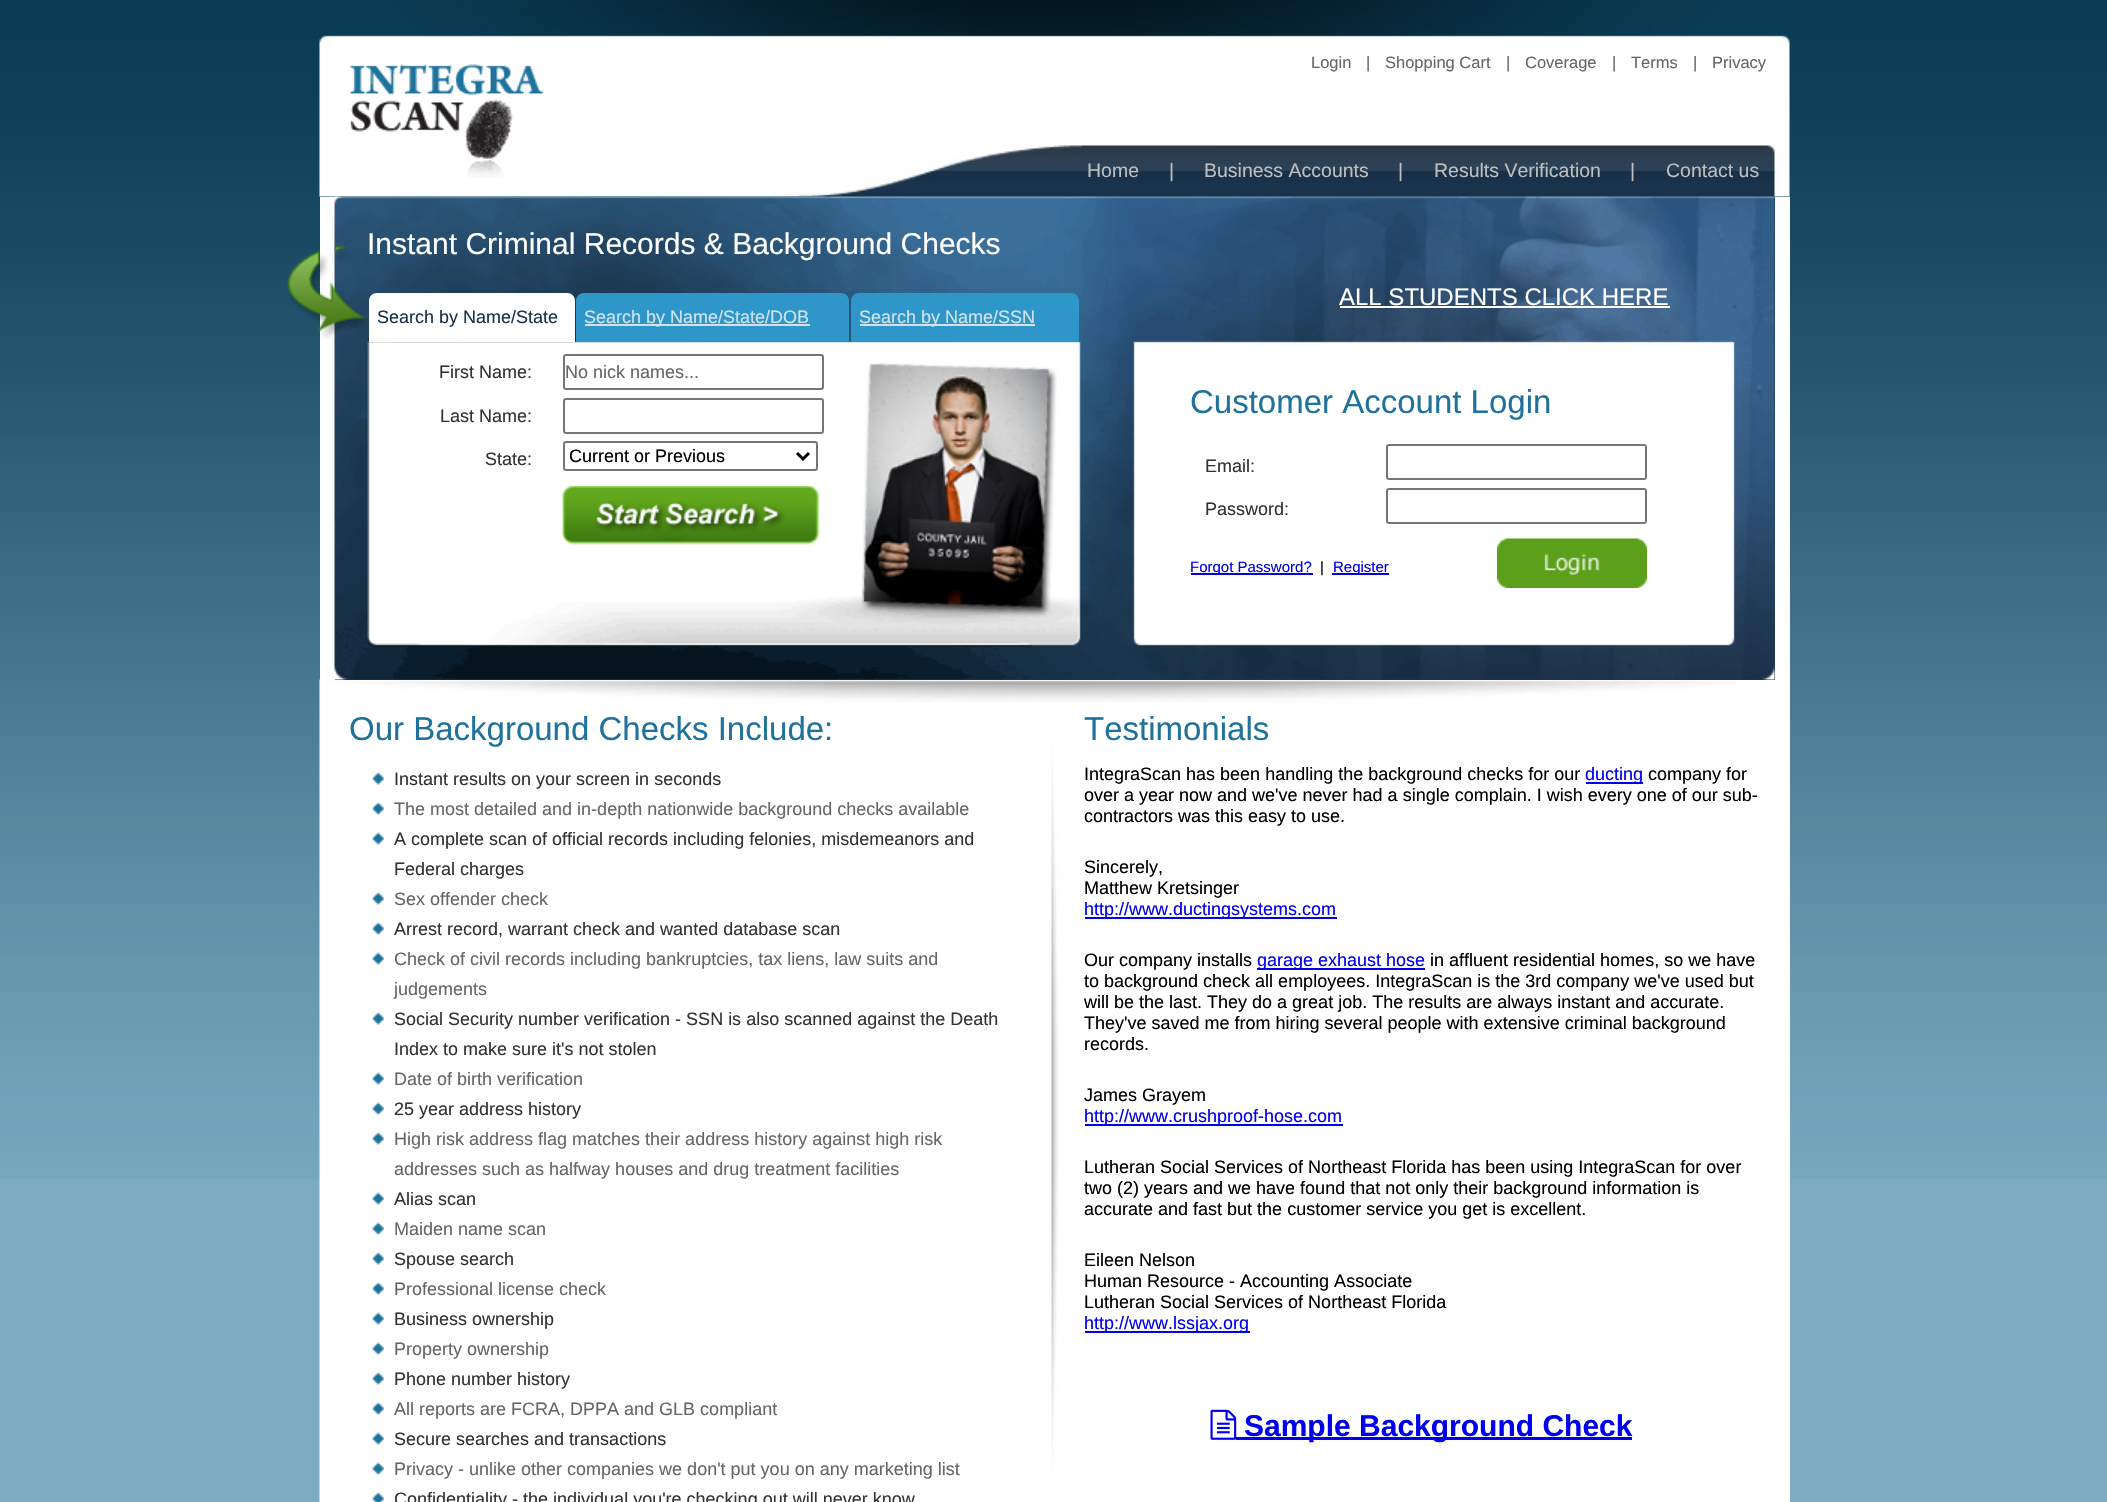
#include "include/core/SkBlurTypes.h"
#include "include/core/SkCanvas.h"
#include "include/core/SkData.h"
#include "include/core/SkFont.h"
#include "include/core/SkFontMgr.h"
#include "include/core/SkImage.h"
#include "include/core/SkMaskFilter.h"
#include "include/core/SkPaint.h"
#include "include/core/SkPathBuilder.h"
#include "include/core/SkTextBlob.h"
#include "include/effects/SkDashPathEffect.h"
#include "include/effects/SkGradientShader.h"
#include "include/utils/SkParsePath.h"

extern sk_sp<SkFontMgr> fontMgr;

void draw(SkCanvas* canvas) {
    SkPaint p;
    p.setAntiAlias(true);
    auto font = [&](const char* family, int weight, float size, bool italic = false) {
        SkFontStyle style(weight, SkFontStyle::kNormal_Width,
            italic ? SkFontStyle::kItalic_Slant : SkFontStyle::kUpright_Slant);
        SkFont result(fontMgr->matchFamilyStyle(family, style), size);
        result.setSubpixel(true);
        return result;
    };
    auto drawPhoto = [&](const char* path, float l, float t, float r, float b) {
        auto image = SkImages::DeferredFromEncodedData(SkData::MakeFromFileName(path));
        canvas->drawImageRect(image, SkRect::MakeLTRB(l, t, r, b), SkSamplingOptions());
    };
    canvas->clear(0xFF7AABC3);
    drawPhoto("media/1.png", 0, 0, 2107, 1179);
    drawPhoto("media/2.png", 319, 0, 1790, 197);
    drawPhoto("media/3.png", 349, 64, 543, 178);
    auto font1 = font("Liberation Sans", 400, 16.5f);
    p.setColor(0xFF666666);
    {
        const struct { const char* s; float x, y; } items[] = {
            {"Login", 1311, 68},
            {"|", 1366, 68},
            {"Shopping Cart", 1385, 68},
            {"|", 1506, 68},
            {"Coverage", 1525, 68},
            {"|", 1612, 68},
            {"Terms", 1631, 68},
            {"|", 1693, 68},
            {"Privacy", 1712, 68},
        };
        for (auto [s, x, y] : items) {
            canvas->drawString(s, x, y, font1, p);
        }
    }
    auto font2 = font("Liberation Sans", 400, 19.5f);
    p.setColor(0xFFBFBFBF);
    {
        const struct { const char* s; float x, y; } items[] = {
            {"Home", 1087, 177},
            {"|", 1169, 177},
            {"Business Accounts", 1204, 177},
            {"|", 1398, 177},
            {"Results Verification", 1434, 177},
            {"|", 1630, 177},
            {"Contact us", 1666, 177},
        };
        for (auto [s, x, y] : items) {
            canvas->drawString(s, x, y, font2, p);
        }
    }
    p.setColor(0xFFFFFFFF);
    canvas->drawRect(SkRect::MakeLTRB(320, 197, 1790, 1502), p);
    drawPhoto("media/4.png", 319, 679, 1736, 1502);
    p.setColor(0xFF1C3651);
    canvas->drawRect(SkRect::MakeLTRB(335, 197, 1775, 680), p);
    drawPhoto("media/5.png", 334, 196, 1775, 680);
    drawPhoto("media/6.png", 286, 245, 368, 339);
    auto font3 = font("Liberation Sans", 400, 30);
    p.setColor(0xFFFFFFFF);
    canvas->drawString("Instant Criminal Records & Background Checks", 367, 254, font3, p);
    auto font4 = font("Liberation Sans", 400, 24);
    canvas->drawString("ALL STUDENTS CLICK HERE", 1339, 305, font4, p);
    canvas->drawRect(SkRect::MakeLTRB(1340, 306, 1670, 308), p);
    canvas->drawPath(SkPathBuilder().moveTo(377, 293).lineTo(567, 293).cubicTo(571.5f, 293, 575, 296.5f, 575, 301).lineTo(575, 342).lineTo(369, 342).lineTo(369, 301).cubicTo(369, 296.5f, 372.5f, 293, 377, 293).close().detach(), p);
    auto font5 = font("Liberation Sans", 400, 18);
    p.setColor(0xFF19334C);
    canvas->drawString("Search by Name/State", 377, 323, font5, p);
    p.setColor(0xFF2F96C9);
    canvas->drawPath(SkPathBuilder().moveTo(584, 293).lineTo(841, 293).cubicTo(845.5f, 293, 849, 296.5f, 849, 301).lineTo(849, 342).lineTo(576, 342).lineTo(576, 301).cubicTo(576, 296.5f, 579.5f, 293, 584, 293).close().detach(), p);
    p.setColor(0xFFD0E2EB);
    canvas->drawRect(SkRect::MakeLTRB(585, 324, 810, 326), p);
    canvas->drawString("Search by Name/State/DOB", 584, 323, font5, p);
    p.setColor(0xFF2F96C9);
    canvas->drawPath(SkPathBuilder().moveTo(859, 293).lineTo(1071, 293).cubicTo(1075.5f, 293, 1079, 296.5f, 1079, 301).lineTo(1079, 342).lineTo(851, 342).lineTo(851, 301).cubicTo(851, 296.5f, 854.5f, 293, 859, 293).close().detach(), p);
    p.setColor(0xFFD0E2EB);
    canvas->drawRect(SkRect::MakeLTRB(860, 324, 1035, 326), p);
    canvas->drawString("Search by Name/SSN", 859, 323, font5, p);
    p.setColor(0xFF333333);
    canvas->drawString("First Name:", 439, 378, font5, p);
    p.setStyle(SkPaint::kStroke_Style);
    p.setStrokeWidth(2);
    p.setColor(0xFF767676);
    canvas->drawRoundRect(SkRect::MakeLTRB(564, 355, 823, 389), 2, 2, p);
    p.setStyle(SkPaint::kFill_Style);
    p.setColor(0xFF666666);
    canvas->drawString("No nick names...", 565, 378, font5, p);
    p.setColor(0xFF333333);
    canvas->drawString("Last Name:", 440, 422, font5, p);
    p.setStyle(SkPaint::kStroke_Style);
    p.setColor(0xFF767676);
    canvas->drawRoundRect(SkRect::MakeLTRB(564, 399, 823, 433), 2, 2, p);
    p.setStyle(SkPaint::kFill_Style);
    p.setColor(0xFF333333);
    canvas->drawString("State:", 485, 465, font5, p);
    p.setStyle(SkPaint::kStroke_Style);
    p.setColor(0xFF767676);
    canvas->drawRoundRect(SkRect::MakeLTRB(564, 442, 817, 470), 2, 2, p);
    p.setStrokeWidth(3);
    p.setColor(0xFF000000);
    canvas->drawPath(SkPathBuilder().moveTo(797, 453).lineTo(803, 459).lineTo(809, 453).detach(), p);
    p.setStyle(SkPaint::kFill_Style);
    canvas->drawString("Current or Previous", 569, 462, font5, p);
    drawPhoto("media/7.png", 562, 486, 819, 545);
    drawPhoto("media/8.png", 861, 362, 1057, 617);
    auto font6 = font("Liberation Sans", 400, 33);
    p.setColor(0xFF1E729B);
    canvas->drawString("Customer Account Login", 1190, 413, font6, p);
    p.setColor(0xFF333333);
    canvas->drawString("Email:", 1205, 472, font5, p);
    p.setStyle(SkPaint::kStroke_Style);
    p.setStrokeWidth(2);
    p.setColor(0xFF767676);
    canvas->drawRoundRect(SkRect::MakeLTRB(1387, 445, 1646, 479), 2, 2, p);
    p.setStyle(SkPaint::kFill_Style);
    p.setColor(0xFF333333);
    canvas->drawString("Password:", 1205, 515, font5, p);
    p.setStyle(SkPaint::kStroke_Style);
    p.setColor(0xFF767676);
    canvas->drawRoundRect(SkRect::MakeLTRB(1387, 489, 1646, 523), 2, 2, p);
    p.setStyle(SkPaint::kFill_Style);
    p.setColor(0xFF0000EE);
    canvas->drawRect(SkRect::MakeLTRB(1191, 573, 1313, 575), p);
    auto font7 = font("Liberation Sans", 400, 15);
    canvas->drawString("Forgot Password?", 1190, 572, font7, p);
    p.setColor(0xFF000000);
    canvas->drawString("|", 1320, 572, font7, p);
    p.setColor(0xFF0000EE);
    canvas->drawRect(SkRect::MakeLTRB(1332, 573, 1389, 575), p);
    canvas->drawString("Register", 1333, 572, font7, p);
    drawPhoto("media/9.png", 1497, 538, 1647, 588);
    p.setColor(0xFF1E729B);
    canvas->drawString("Our Background Checks Include:", 349, 740, font6, p);
    drawPhoto("media/10.png", 372, 772, 384, 785);
    p.setColor(0xFF333333);
    canvas->drawString("Instant results on your screen in seconds", 394, 785, font5, p);
    drawPhoto("media/10.png", 372, 802, 384, 815);
    p.setColor(0xFF666666);
    canvas->drawString("The most detailed and in-depth nationwide background checks available", 394, 815, font5, p);
    drawPhoto("media/10.png", 372, 832, 384, 845);
    p.setColor(0xFF333333);
    canvas->drawString("A complete scan of official records including felonies, misdemeanors and", 394, 845, font5, p);
    canvas->drawString("Federal charges", 394, 875, font5, p);
    drawPhoto("media/10.png", 372, 892, 384, 905);
    p.setColor(0xFF666666);
    canvas->drawString("Sex offender check", 394, 905, font5, p);
    drawPhoto("media/10.png", 372, 922, 384, 935);
    p.setColor(0xFF333333);
    canvas->drawString("Arrest record, warrant check and wanted database scan", 394, 935, font5, p);
    drawPhoto("media/10.png", 372, 952, 384, 965);
    p.setColor(0xFF666666);
    canvas->drawString("Check of civil records including bankruptcies, tax liens, law suits and", 394, 965, font5, p);
    canvas->drawString("judgements", 394, 995, font5, p);
    drawPhoto("media/10.png", 372, 1012, 384, 1025);
    p.setColor(0xFF333333);
    canvas->drawString("Social Security number verification - SSN is also scanned against the Death", 394, 1025, font5, p);
    canvas->drawString("Index to make sure it's not stolen", 394, 1055, font5, p);
    drawPhoto("media/10.png", 372, 1072, 384, 1085);
    p.setColor(0xFF666666);
    canvas->drawString("Date of birth verification", 394, 1085, font5, p);
    drawPhoto("media/10.png", 372, 1102, 384, 1115);
    p.setColor(0xFF333333);
    canvas->drawString("25 year address history", 394, 1115, font5, p);
    drawPhoto("media/10.png", 372, 1132, 384, 1145);
    p.setColor(0xFF666666);
    canvas->drawString("High risk address flag matches their address history against high risk", 394, 1145, font5, p);
    canvas->drawString("addresses such as halfway houses and drug treatment facilities", 394, 1175, font5, p);
    drawPhoto("media/10.png", 372, 1192, 384, 1205);
    p.setColor(0xFF333333);
    canvas->drawString("Alias scan", 394, 1205, font5, p);
    drawPhoto("media/10.png", 372, 1222, 384, 1235);
    p.setColor(0xFF666666);
    canvas->drawString("Maiden name scan", 394, 1235, font5, p);
    drawPhoto("media/10.png", 372, 1252, 384, 1265);
    p.setColor(0xFF333333);
    canvas->drawString("Spouse search", 394, 1265, font5, p);
    drawPhoto("media/10.png", 372, 1282, 384, 1295);
    p.setColor(0xFF666666);
    canvas->drawString("Professional license check", 394, 1295, font5, p);
    drawPhoto("media/10.png", 372, 1312, 384, 1325);
    p.setColor(0xFF333333);
    canvas->drawString("Business ownership", 394, 1325, font5, p);
    drawPhoto("media/10.png", 372, 1342, 384, 1355);
    p.setColor(0xFF666666);
    canvas->drawString("Property ownership", 394, 1355, font5, p);
    drawPhoto("media/10.png", 372, 1372, 384, 1385);
    p.setColor(0xFF333333);
    canvas->drawString("Phone number history", 394, 1385, font5, p);
    drawPhoto("media/10.png", 372, 1402, 384, 1415);
    p.setColor(0xFF666666);
    canvas->drawString("All reports are FCRA, DPPA and GLB compliant", 394, 1415, font5, p);
    drawPhoto("media/10.png", 372, 1432, 384, 1445);
    p.setColor(0xFF333333);
    canvas->drawString("Secure searches and transactions", 394, 1445, font5, p);
    drawPhoto("media/10.png", 372, 1462, 384, 1475);
    p.setColor(0xFF666666);
    canvas->drawString("Privacy - unlike other companies we don't put you on any marketing list", 394, 1475, font5, p);
    drawPhoto("media/11.png", 372, 1492, 384, 1502);
    p.setColor(0xFF333333);
    canvas->drawString("Confidentiality - the individual you're checking out will never know", 394, 1505, font5, p);
    p.setColor(0xFF1E729B);
    canvas->drawString("Testimonials", 1084, 740, font6, p);
    p.setColor(0xFF000000);
    canvas->drawString("IntegraScan has been handling the background checks for our", 1084, 780, font5, p);
    p.setColor(0xFF0000EE);
    canvas->drawRect(SkRect::MakeLTRB(1586, 782, 1643, 784), p);
    canvas->drawString("ducting", 1585, 780, font5, p);
    p.setColor(0xFF000000);
    {
        const struct { const char* s; float x, y; } items[] = {
            {"company for", 1648, 780},
            {"over a year now and we've never had a single complain. I wish every one of our sub-", 1084, 801},
            {"contractors was this easy to use.", 1084, 822},
            {"Sincerely,", 1084, 873},
            {"Matthew Kretsinger", 1084, 894},
        };
        for (auto [s, x, y] : items) {
            canvas->drawString(s, x, y, font5, p);
        }
    }
    p.setColor(0xFF0000EE);
    canvas->drawRect(SkRect::MakeLTRB(1085, 917, 1337, 919), p);
    canvas->drawString("http://www.ductingsystems.com", 1084, 915, font5, p);
    p.setColor(0xFF000000);
    canvas->drawString("Our company installs", 1084, 966, font5, p);
    p.setColor(0xFF0000EE);
    canvas->drawRect(SkRect::MakeLTRB(1257, 968, 1425, 970), p);
    canvas->drawString("garage exhaust hose", 1257, 966, font5, p);
    p.setColor(0xFF000000);
    {
        const struct { const char* s; float x, y; } items[] = {
            {"in affluent residential homes, so we have", 1430, 966},
            {"to background check all employees. IntegraScan is the 3rd company we've used but", 1084, 987},
            {"will be the last. They do a great job. The results are always instant and accurate.", 1084, 1008},
            {"They've saved me from hiring several people with extensive criminal background", 1084, 1029},
            {"records.", 1084, 1050},
            {"James Grayem", 1084, 1101},
        };
        for (auto [s, x, y] : items) {
            canvas->drawString(s, x, y, font5, p);
        }
    }
    p.setColor(0xFF0000EE);
    canvas->drawRect(SkRect::MakeLTRB(1085, 1124, 1343, 1126), p);
    canvas->drawString("http://www.crushproof-hose.com", 1084, 1122, font5, p);
    p.setColor(0xFF000000);
    {
        const struct { const char* s; float x, y; } items[] = {
            {"Lutheran Social Services of Northeast Florida has been using IntegraScan for over", 1084, 1173},
            {"two (2) years and we have found that not only their background information is", 1084, 1194},
            {"accurate and fast but the customer service you get is excellent.", 1084, 1215},
            {"Eileen Nelson", 1084, 1266},
            {"Human Resource - Accounting Associate", 1084, 1287},
            {"Lutheran Social Services of Northeast Florida", 1084, 1308},
        };
        for (auto [s, x, y] : items) {
            canvas->drawString(s, x, y, font5, p);
        }
    }
    p.setColor(0xFF0000EE);
    canvas->drawRect(SkRect::MakeLTRB(1085, 1331, 1250, 1333), p);
    canvas->drawString("http://www.lssjax.org", 1084, 1329, font5, p);
    drawPhoto("media/12.png", 1210, 1409, 1237, 1440);
    canvas->drawRect(SkRect::MakeLTRB(1236, 1437, 1632, 1440), p);
    auto font8 = font("Liberation Sans", 700, 30);
    canvas->drawString("Sample Background Check", 1244, 1436, font8, p);
}
